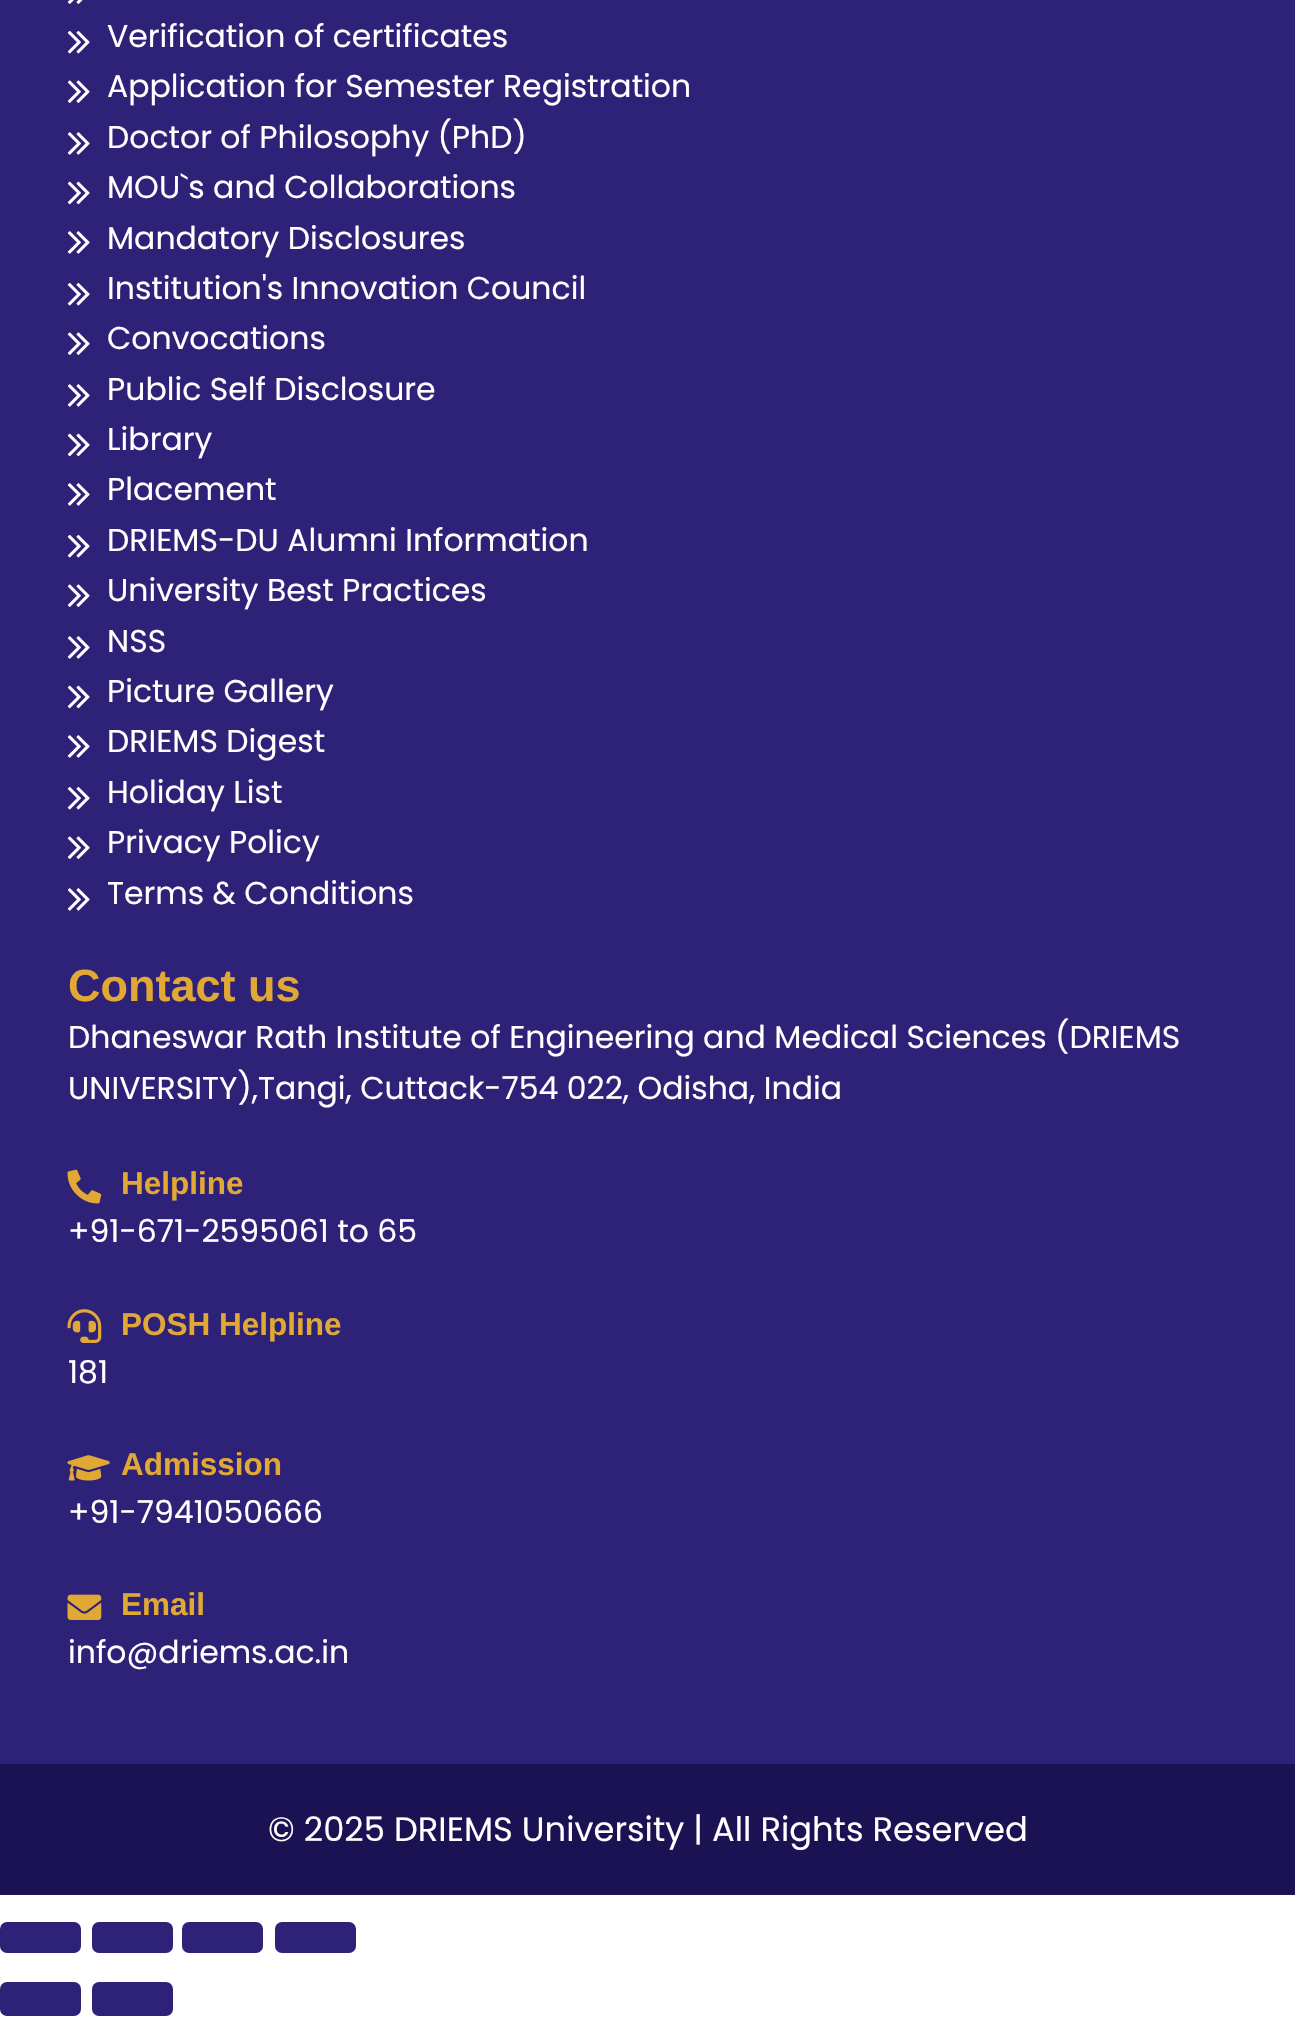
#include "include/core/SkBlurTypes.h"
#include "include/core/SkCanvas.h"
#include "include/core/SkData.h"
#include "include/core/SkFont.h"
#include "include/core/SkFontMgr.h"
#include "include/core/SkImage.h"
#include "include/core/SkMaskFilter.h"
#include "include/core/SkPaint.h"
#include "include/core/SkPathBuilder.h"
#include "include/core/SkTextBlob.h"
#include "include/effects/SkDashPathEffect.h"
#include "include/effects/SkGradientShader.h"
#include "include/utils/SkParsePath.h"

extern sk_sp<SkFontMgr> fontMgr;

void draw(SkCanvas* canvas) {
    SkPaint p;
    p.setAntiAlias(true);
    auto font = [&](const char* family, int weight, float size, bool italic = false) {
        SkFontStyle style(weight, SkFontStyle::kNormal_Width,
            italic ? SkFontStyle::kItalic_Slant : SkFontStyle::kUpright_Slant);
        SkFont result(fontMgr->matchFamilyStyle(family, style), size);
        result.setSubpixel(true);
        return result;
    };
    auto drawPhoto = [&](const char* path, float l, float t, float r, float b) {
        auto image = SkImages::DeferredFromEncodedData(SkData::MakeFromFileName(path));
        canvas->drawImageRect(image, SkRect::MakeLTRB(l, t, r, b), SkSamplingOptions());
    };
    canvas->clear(0xFFFFFFFF);
    p.setColor(0xFF2E2278);
    canvas->drawRect(SkRect::MakeLTRB(0, 0, 1295, 1764), p);
    drawPhoto("media/1.png", 67, 0, 83, 4);
    drawPhoto("media/2.png", 67, 31, 90, 54);
    auto font1 = font("Poppins", 400, 31.5f);
    p.setColor(0xFFFFFFFF);
    canvas->drawString("Verification of certificates", 107, 47, font1, p);
    drawPhoto("media/3.png", 67, 80, 90, 103);
    canvas->drawString("Application for Semester Registration", 107, 97, font1, p);
    drawPhoto("media/4.png", 67, 132, 90, 155);
    canvas->drawString("Doctor of Philosophy (PhD)", 107, 148, font1, p);
    drawPhoto("media/5.png", 67, 181, 90, 205);
    canvas->drawString("MOU`s and Collaborations", 107, 198, font1, p);
    drawPhoto("media/4.png", 67, 231, 90, 254);
    canvas->drawString("Mandatory Disclosures", 107, 249, font1, p);
    drawPhoto("media/2.png", 67, 283, 90, 306);
    canvas->drawString("Institution's Innovation Council", 107, 299, font1, p);
    drawPhoto("media/3.png", 67, 332, 90, 355);
    canvas->drawString("Convocations", 107, 349, font1, p);
    drawPhoto("media/4.png", 67, 384, 90, 407);
    canvas->drawString("Public Self Disclosure", 107, 400, font1, p);
    drawPhoto("media/5.png", 67, 433, 90, 457);
    canvas->drawString("Library", 107, 450, font1, p);
    drawPhoto("media/4.png", 67, 483, 90, 506);
    canvas->drawString("Placement", 107, 500, font1, p);
    drawPhoto("media/2.png", 67, 535, 90, 558);
    canvas->drawString("DRIEMS-DU Alumni Information", 107, 551, font1, p);
    drawPhoto("media/3.png", 67, 584, 90, 607);
    canvas->drawString("University Best Practices", 107, 601, font1, p);
    drawPhoto("media/4.png", 67, 636, 90, 659);
    canvas->drawString("NSS", 107, 652, font1, p);
    drawPhoto("media/5.png", 67, 685, 90, 709);
    canvas->drawString("Picture Gallery", 107, 702, font1, p);
    drawPhoto("media/4.png", 67, 735, 90, 758);
    canvas->drawString("DRIEMS Digest", 107, 752, font1, p);
    drawPhoto("media/2.png", 67, 787, 90, 810);
    canvas->drawString("Holiday List", 107, 803, font1, p);
    drawPhoto("media/3.png", 67, 836, 90, 859);
    canvas->drawString("Privacy Policy", 107, 853, font1, p);
    drawPhoto("media/4.png", 67, 888, 90, 911);
    canvas->drawString("Terms & Conditions", 107, 904, font1, p);
    auto font2 = font("Liberation Sans", 700, 45);
    p.setColor(0xFFE1A835);
    canvas->drawString("Contact us", 68, 1001, font2, p);
    p.setColor(0xFFFFFFFF);
    canvas->drawString("Dhaneswar Rath Institute of Engineering and Medical Sciences (DRIEMS", 68, 1048, font1, p);
    canvas->drawString("UNIVERSITY),Tangi, Cuttack-754 022, Odisha, India", 68, 1099, font1, p);
    drawPhoto("media/6.png", 67, 1169, 102, 1204);
    auto font3 = font("Liberation Sans", 700, 31.5f);
    p.setColor(0xFFE1A835);
    canvas->drawString("Helpline", 121, 1194, font3, p);
    p.setColor(0xFFFFFFFF);
    canvas->drawString("+91-671-2595061 to 65", 68, 1242, font1, p);
    drawPhoto("media/7.png", 67, 1309, 102, 1343);
    p.setColor(0xFFE1A835);
    canvas->drawString("POSH Helpline", 121, 1335, font3, p);
    p.setColor(0xFFFFFFFF);
    canvas->drawString("181", 68, 1383, font1, p);
    drawPhoto("media/8.png", 67, 1455, 110, 1481);
    p.setColor(0xFFE1A835);
    canvas->drawString("Admission", 121, 1475, font3, p);
    p.setColor(0xFFFFFFFF);
    canvas->drawString("+91-7941050666", 68, 1523, font1, p);
    drawPhoto("media/9.png", 67, 1594, 102, 1620);
    p.setColor(0xFFE1A835);
    canvas->drawString("Email", 121, 1615, font3, p);
    p.setColor(0xFFFFFFFF);
    canvas->drawString("info@driems.ac.in", 68, 1663, font1, p);
    p.setColor(0xFF1B1253);
    canvas->drawRect(SkRect::MakeLTRB(0, 1764, 1295, 1895), p);
    auto font4 = font("Poppins", 400, 33.75f);
    p.setColor(0xFFFFFFFF);
    canvas->drawString("© 2025 DRIEMS University | All Rights Reserved", 268, 1841, font4, p);
    p.setColor(0xFF2E2278);
    canvas->drawRoundRect(SkRect::MakeLTRB(0, 1922, 81, 1953), 7, 7, p);
    canvas->drawRoundRect(SkRect::MakeLTRB(92, 1922, 173, 1953), 7, 7, p);
    canvas->drawRoundRect(SkRect::MakeLTRB(182, 1922, 263, 1953), 7, 7, p);
    canvas->drawRoundRect(SkRect::MakeLTRB(275, 1922, 356, 1953), 7, 7, p);
    canvas->drawRoundRect(SkRect::MakeLTRB(0, 1982, 81, 2016), 7, 7, p);
    canvas->drawRoundRect(SkRect::MakeLTRB(92, 1982, 173, 2016), 7, 7, p);
}
